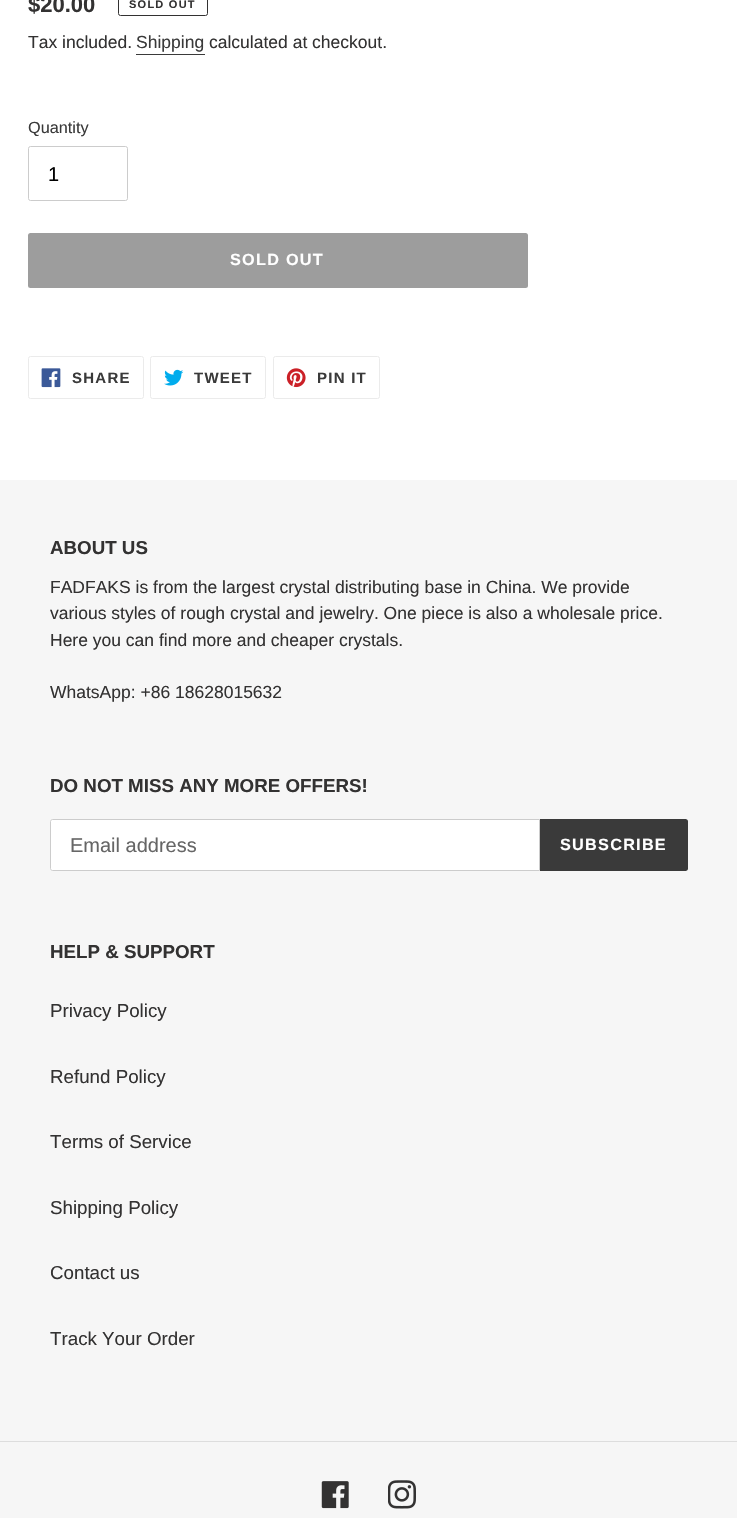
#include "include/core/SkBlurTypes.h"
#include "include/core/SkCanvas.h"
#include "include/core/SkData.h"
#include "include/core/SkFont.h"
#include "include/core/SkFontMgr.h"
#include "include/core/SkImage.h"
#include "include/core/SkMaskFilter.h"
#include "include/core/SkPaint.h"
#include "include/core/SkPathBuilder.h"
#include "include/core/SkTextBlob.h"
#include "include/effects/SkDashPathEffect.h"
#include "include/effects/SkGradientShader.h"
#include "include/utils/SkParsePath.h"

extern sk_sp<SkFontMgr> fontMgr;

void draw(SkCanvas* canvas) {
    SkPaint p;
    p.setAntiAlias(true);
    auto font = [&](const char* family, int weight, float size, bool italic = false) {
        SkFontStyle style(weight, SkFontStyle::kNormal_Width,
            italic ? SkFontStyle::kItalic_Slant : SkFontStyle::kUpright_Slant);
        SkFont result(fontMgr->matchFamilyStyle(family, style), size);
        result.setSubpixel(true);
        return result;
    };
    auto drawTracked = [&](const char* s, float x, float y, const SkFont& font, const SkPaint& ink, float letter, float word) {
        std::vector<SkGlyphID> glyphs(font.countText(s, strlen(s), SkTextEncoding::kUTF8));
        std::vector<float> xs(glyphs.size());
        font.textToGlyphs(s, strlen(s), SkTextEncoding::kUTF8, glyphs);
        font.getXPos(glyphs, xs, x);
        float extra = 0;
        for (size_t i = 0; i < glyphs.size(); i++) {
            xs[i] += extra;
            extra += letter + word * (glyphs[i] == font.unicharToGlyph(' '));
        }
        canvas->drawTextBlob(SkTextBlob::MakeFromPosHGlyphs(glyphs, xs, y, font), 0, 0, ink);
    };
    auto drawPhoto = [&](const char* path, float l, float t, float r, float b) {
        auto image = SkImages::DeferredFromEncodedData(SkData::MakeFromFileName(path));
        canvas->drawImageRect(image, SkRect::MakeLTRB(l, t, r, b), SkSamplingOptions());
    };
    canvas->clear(0xFFFFFFFF);
    auto font1 = font("Liberation Sans", 700, 22);
    p.setColor(0xFF333232);
    canvas->drawString("$20.00", 28, 12, font1, p);
    p.setStyle(SkPaint::kStroke_Style);
    p.setStrokeWidth(1);
    canvas->drawRoundRect(SkRect::MakeLTRB(118.5f, -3.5f, 207.5f, 15.5f), 2, 2, p);
    auto font2 = font("Liberation Sans", 700, 11);
    p.setStyle(SkPaint::kFill_Style);
    drawTracked("SOLD OUT", 129, 8, font2, p, 1.25f, 0);
    auto font3 = font("Liberation Sans", 400, 17.5f);
    canvas->drawString("Tax included.", 28, 48, font3, p);
    p.setColor(0xFF3A3A3A);
    canvas->drawString("Shipping", 136, 48, font3, p);
    canvas->drawRect(SkRect::MakeLTRB(136, 54, 205, 55), p);
    p.setColor(0xFF333232);
    canvas->drawString("calculated at checkout.", 209, 48, font3, p);
    auto font4 = font("Liberation Sans", 400, 16.25f);
    p.setColor(0xFF3A3A3A);
    canvas->drawString("Quantity", 28, 133, font4, p);
    p.setStyle(SkPaint::kStroke_Style);
    p.setColor(0xFFCCCCCC);
    canvas->drawRoundRect(SkRect::MakeLTRB(28.5f, 146.5f, 127.5f, 200.5f), 2, 2, p);
    auto font5 = font("Liberation Sans", 400, 20);
    p.setStyle(SkPaint::kFill_Style);
    p.setColor(0xFF000000);
    canvas->drawString("1", 48, 181, font5, p);
    p.setColor(0xFF9D9D9D);
    canvas->drawRoundRect(SkRect::MakeLTRB(28, 233, 528, 288), 2.5f, 2.5f, p);
    auto font6 = font("Liberation Sans", 700, 16.25f);
    p.setColor(0xFFFFFFFF);
    drawTracked("SOLD OUT", 230, 265, font6, p, 1.25f, 0);
    p.setStyle(SkPaint::kStroke_Style);
    p.setColor(0xFFEBEBEB);
    canvas->drawRoundRect(SkRect::MakeLTRB(28.5f, 356.5f, 143.5f, 398.5f), 2, 2, p);
    drawPhoto("media/1.png", 41, 368, 61, 388);
    auto font7 = font("Liberation Sans", 700, 15);
    p.setStyle(SkPaint::kFill_Style);
    p.setColor(0xFF3A3A3A);
    drawTracked("SHARE", 72, 383, font7, p, 1.25f, 0);
    p.setStyle(SkPaint::kStroke_Style);
    p.setColor(0xFFEBEBEB);
    canvas->drawRoundRect(SkRect::MakeLTRB(150.5f, 356.5f, 265.5f, 398.5f), 2, 2, p);
    drawPhoto("media/2.png", 164, 369, 184, 386);
    p.setStyle(SkPaint::kFill_Style);
    p.setColor(0xFF3A3A3A);
    drawTracked("TWEET", 194, 383, font7, p, 1.25f, 0);
    p.setStyle(SkPaint::kStroke_Style);
    p.setColor(0xFFEBEBEB);
    canvas->drawRoundRect(SkRect::MakeLTRB(273.5f, 356.5f, 379.5f, 398.5f), 2, 2, p);
    drawPhoto("media/3.png", 286, 368, 306, 388);
    p.setStyle(SkPaint::kFill_Style);
    p.setColor(0xFF3A3A3A);
    drawTracked("PIN IT", 317, 383, font7, p, 1.25f, 0);
    p.setColor(0xFFF6F6F6);
    canvas->drawRect(SkRect::MakeLTRB(0, 480, 737, 1518), p);
    auto font8 = font("Liberation Sans", 700, 18.75f);
    p.setColor(0xFF333232);
    canvas->drawString("ABOUT US", 50, 554, font8, p);
    {
        const struct { const char* s; float x, y; } items[] = {
            {"FADFAKS is from the largest crystal distributing base in China. We provide", 50, 593},
            {"various styles of rough crystal and jewelry. One piece is also a wholesale price.", 50, 619},
            {"Here you can find more and cheaper crystals.", 50, 646},
            {"WhatsApp: +86 18628015632", 50, 698},
        };
        for (auto [s, x, y] : items) {
            canvas->drawString(s, x, y, font3, p);
        }
    }
    canvas->drawString("DO NOT MISS ANY MORE OFFERS!", 50, 792, font8, p);
    p.setColor(0xFFFFFFFF);
    canvas->drawPath(SkPathBuilder().moveTo(52.5f, 819.5f).lineTo(539.5f, 819.5f).lineTo(539.5f, 870.5f).lineTo(52.5f, 870.5f).cubicTo(51.5f, 870.5f, 50.5f, 869.5f, 50.5f, 868.5f).lineTo(50.5f, 821.5f).cubicTo(50.5f, 820.5f, 51.5f, 819.5f, 52.5f, 819.5f).close().detach(), p);
    p.setStyle(SkPaint::kStroke_Style);
    p.setColor(0xFFCCCCCC);
    canvas->drawPath(SkPathBuilder().moveTo(52.5f, 819.5f).lineTo(539.5f, 819.5f).lineTo(539.5f, 870.5f).lineTo(52.5f, 870.5f).cubicTo(51.5f, 870.5f, 50.5f, 869.5f, 50.5f, 868.5f).lineTo(50.5f, 821.5f).cubicTo(50.5f, 820.5f, 51.5f, 819.5f, 52.5f, 819.5f).close().detach(), p);
    p.setStyle(SkPaint::kFill_Style);
    p.setColor(0xFF666666);
    canvas->drawString("Email address", 70, 852, font5, p);
    p.setColor(0xFF3A3A3A);
    canvas->drawPath(SkPathBuilder().moveTo(540, 819).lineTo(685.5f, 819).cubicTo(687, 819, 688, 820, 688, 821.5f).lineTo(688, 868.5f).cubicTo(688, 870, 687, 871, 685.5f, 871).lineTo(540, 871).close().detach(), p);
    p.setColor(0xFFFFFFFF);
    drawTracked("SUBSCRIBE", 560, 850, font6, p, 1.25f, 0);
    p.setColor(0xFF333232);
    canvas->drawString("HELP & SUPPORT", 50, 958, font8, p);
    auto font9 = font("Liberation Sans", 400, 18.75f);
    {
        const struct { const char* s; float x, y; } items[] = {
            {"Privacy Policy", 50, 1017},
            {"Refund Policy", 50, 1083},
            {"Terms of Service", 50, 1148},
            {"Shipping Policy", 50, 1214},
            {"Contact us", 50, 1279},
            {"Track Your Order", 50, 1345},
        };
        for (auto [s, x, y] : items) {
            canvas->drawString(s, x, y, font9, p);
        }
    }
    p.setColor(0xFFDDDDDD);
    canvas->drawRect(SkRect::MakeLTRB(0, 1441, 737, 1442), p);
    drawPhoto("media/4.png", 321, 1481, 349, 1509);
    drawPhoto("media/5.png", 388, 1480, 416, 1509);
}
